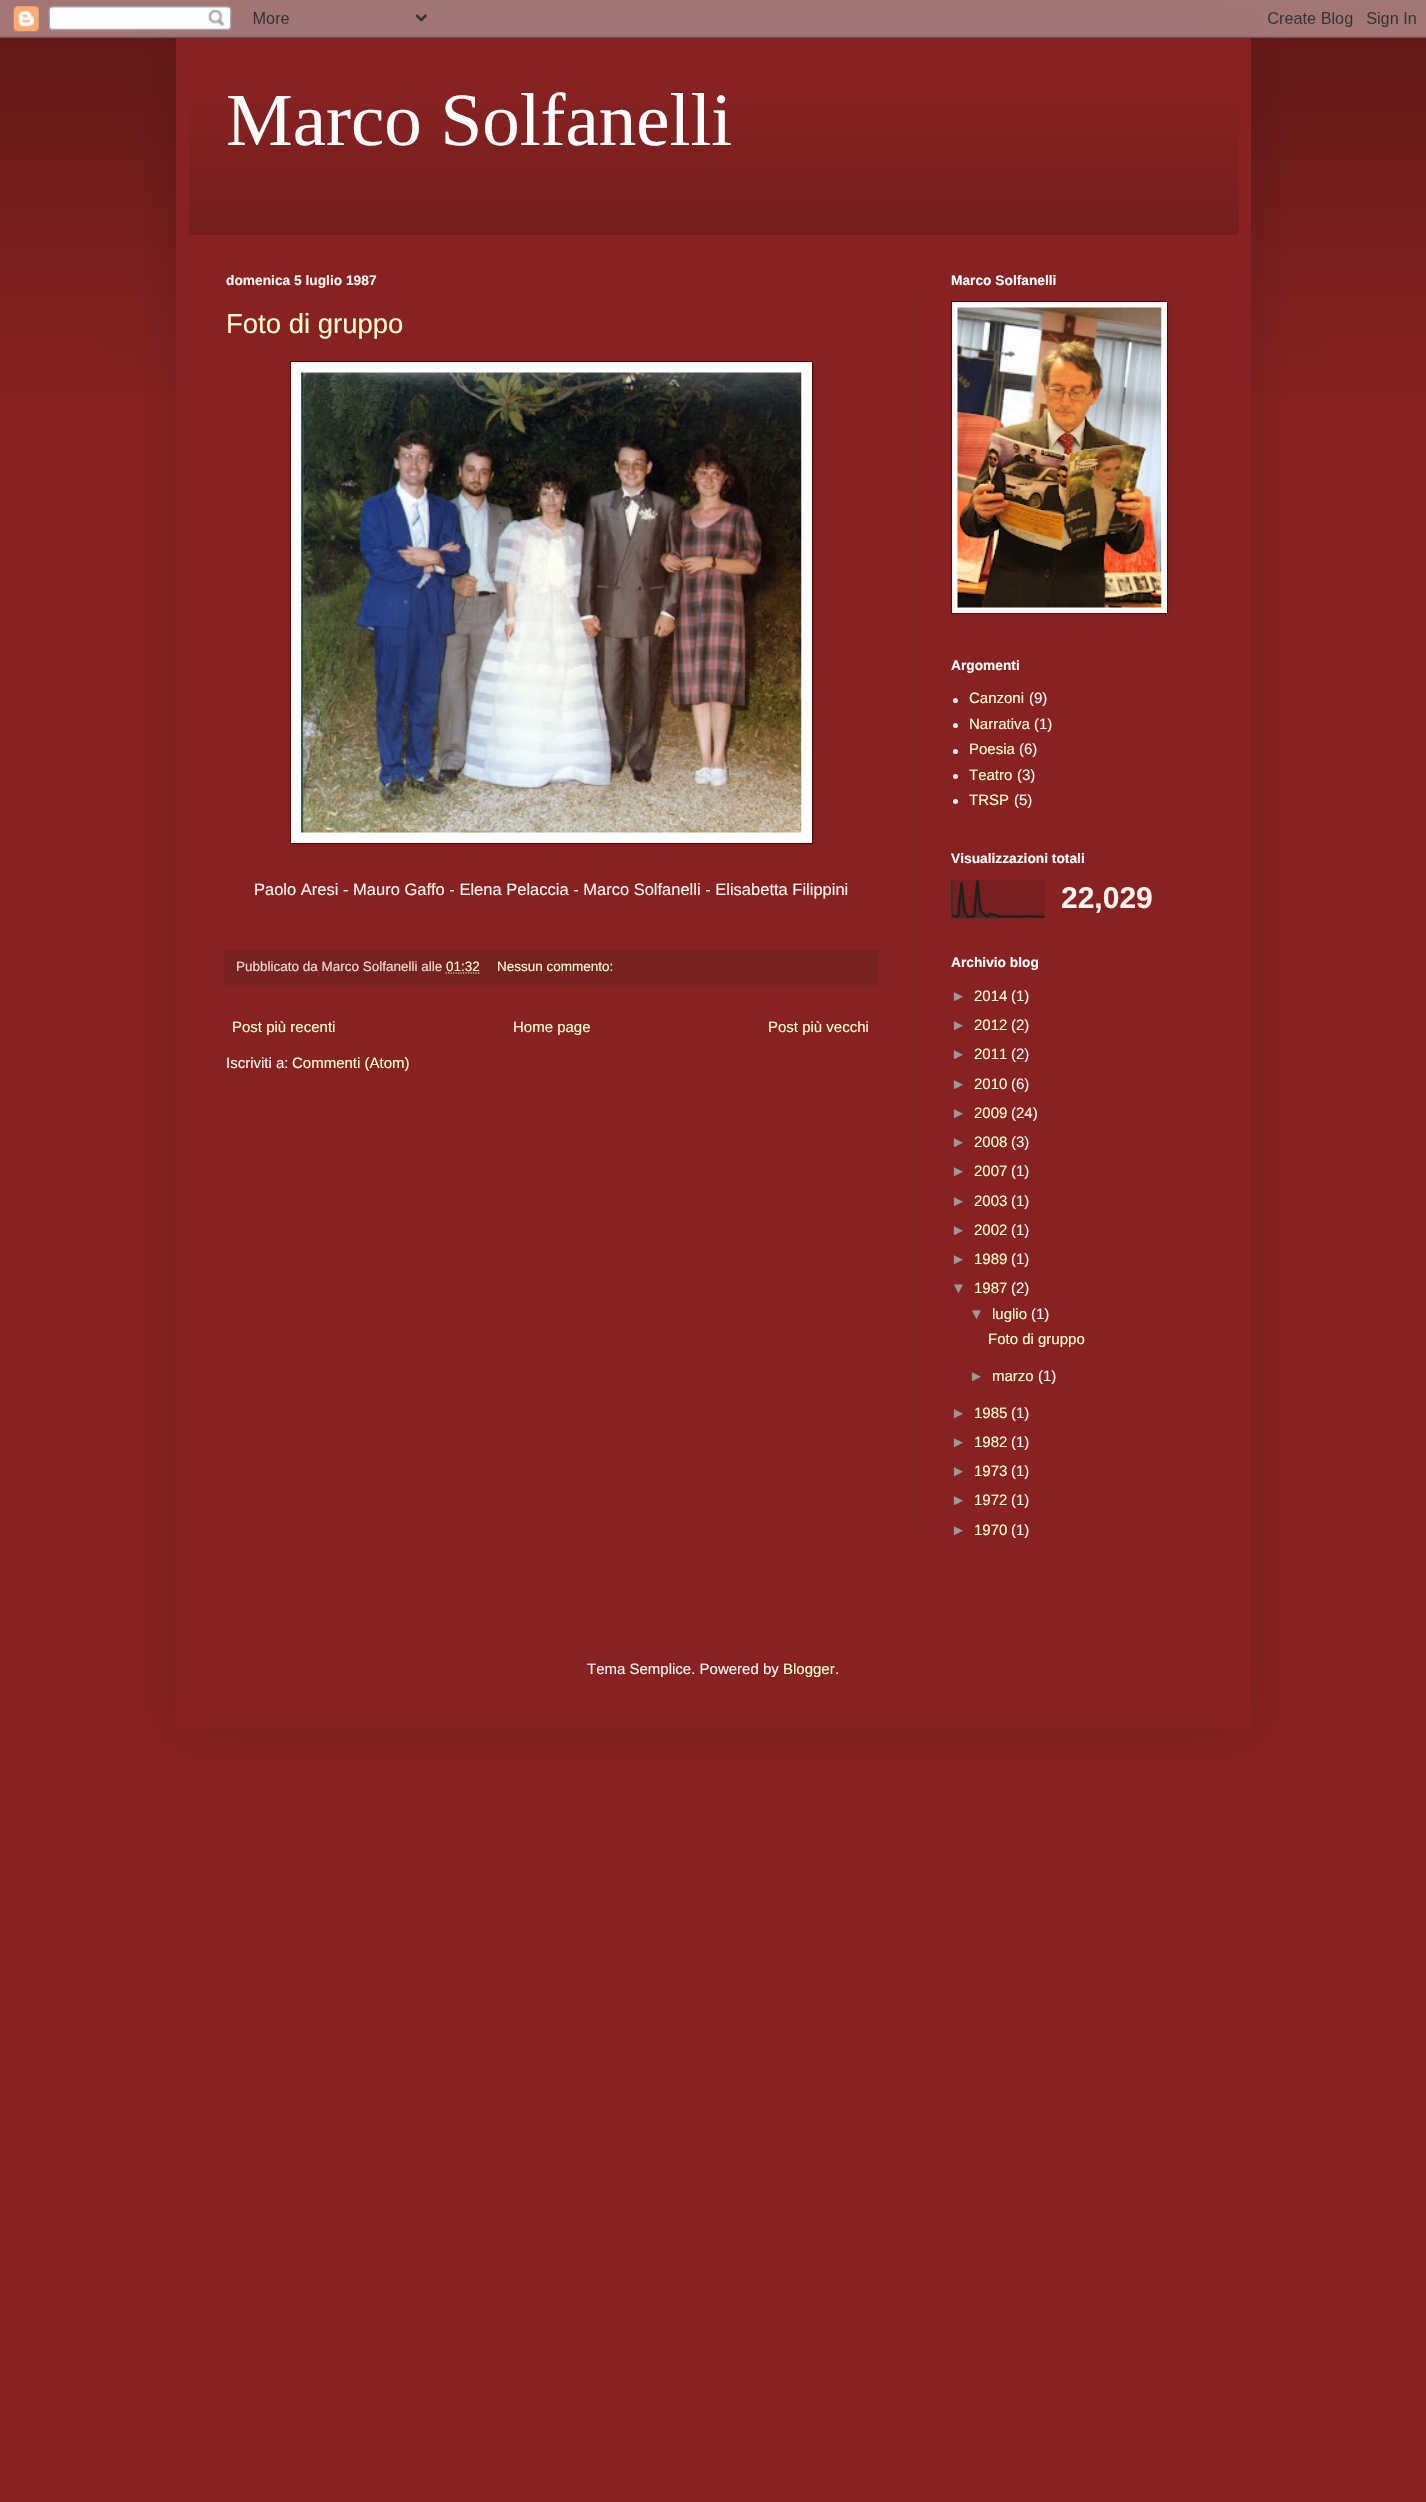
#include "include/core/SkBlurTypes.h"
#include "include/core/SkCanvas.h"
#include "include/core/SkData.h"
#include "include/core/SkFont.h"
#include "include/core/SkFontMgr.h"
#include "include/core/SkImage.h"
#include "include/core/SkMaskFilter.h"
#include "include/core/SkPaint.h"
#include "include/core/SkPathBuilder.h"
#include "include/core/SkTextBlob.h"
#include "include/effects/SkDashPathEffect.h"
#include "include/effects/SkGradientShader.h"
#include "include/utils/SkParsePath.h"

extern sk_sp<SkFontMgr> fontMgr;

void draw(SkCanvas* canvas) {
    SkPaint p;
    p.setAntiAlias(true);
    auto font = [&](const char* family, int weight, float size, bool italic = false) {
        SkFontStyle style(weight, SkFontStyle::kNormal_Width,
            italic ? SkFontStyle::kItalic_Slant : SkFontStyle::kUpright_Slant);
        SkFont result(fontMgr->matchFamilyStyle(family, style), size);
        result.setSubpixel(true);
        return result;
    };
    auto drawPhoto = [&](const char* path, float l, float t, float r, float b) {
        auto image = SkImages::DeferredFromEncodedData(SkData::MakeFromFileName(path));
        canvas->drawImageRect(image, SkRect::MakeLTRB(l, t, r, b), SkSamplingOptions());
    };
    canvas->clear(0xFF882222);
    drawPhoto("media/1.png", 0, 0, 1426, 393);
    p.setColor(0x26000000);
    p.setMaskFilter(SkMaskFilter::MakeBlur(kNormal_SkBlurStyle, 25));
    canvas->drawRect(SkRect::MakeLTRB(176, 38, 1251, 1729), p);
    p.setMaskFilter(nullptr);
    drawPhoto("media/2.png", 0, 0, 1426, 38);
    p.setColor(0xFF882222);
    canvas->drawRect(SkRect::MakeLTRB(176, 38, 1251, 1729), p);
    drawPhoto("media/3.png", 188, 102, 1239, 235);
    auto font1 = font("Liberation Serif", 400, 75);
    p.setColor(0xFFFFFFFF);
    canvas->drawString("Marco Solfanelli", 226, 145, font1, p);
    p.setColor(0xFF772222);
    canvas->drawRect(SkRect::MakeLTRB(914, 273, 915, 1546), p);
    auto font2 = font("Liberation Sans", 700, 13.75f);
    p.setColor(0xFFFFF5EE);
    canvas->drawString("domenica 5 luglio 1987", 226, 285, font2, p);
    auto font3 = font("Liberation Sans", 400, 27.5f);
    p.setColor(0xFFFFFFCC);
    canvas->drawString("Foto di gruppo", 226, 333, font3, p);
    p.setColor(0x1A000000);
    p.setMaskFilter(SkMaskFilter::MakeBlur(kNormal_SkBlurStyle, 3));
    canvas->drawRect(SkRect::MakeLTRB(291, 363, 814, 845), p);
    p.setMaskFilter(nullptr);
    p.setColor(0xFFFFFFFF);
    canvas->drawRect(SkRect::MakeLTRB(290.5f, 361.5f, 812.5f, 843.5f), p);
    p.setStyle(SkPaint::kStroke_Style);
    p.setStrokeWidth(1);
    p.setColor(0xFF660000);
    canvas->drawRect(SkRect::MakeLTRB(290.5f, 361.5f, 812.5f, 843.5f), p);
    drawPhoto("media/4.png", 301, 372, 802, 833);
    auto font4 = font("Liberation Sans", 400, 16.5f);
    p.setStyle(SkPaint::kFill_Style);
    p.setColor(0xFFFFF5EE);
    canvas->drawString("Paolo Aresi - Mauro Gaffo - Elena Pelaccia - Marco Solfanelli - Elisabetta Filippini", 254, 895, font4, p);
    p.setColor(0xFF772222);
    canvas->drawRect(SkRect::MakeLTRB(224, 950, 879, 985), p);
    auto font5 = font("Liberation Sans", 400, 13.5f);
    p.setColor(0xFFEEDDCC);
    canvas->drawString("Pubblicato da Marco Solfanelli alle", 236, 971, font5, p);
    p.setColor(0xFFFFFFCC);
    canvas->drawString("01:32", 446, 971, font5, p);
    p.setStyle(SkPaint::kStroke_Style);
    p.setStrokeWidth(1.2f);
    p.setPathEffect(SkDashPathEffect::Make({{1.25f, 1.25f}}, 0));
    canvas->drawPath(SkPathBuilder().moveTo(445.5f, 973).lineTo(479.5f, 973).detach(), p);
    p.setPathEffect(nullptr);
    p.setStyle(SkPaint::kFill_Style);
    canvas->drawString("Nessun commento:", 497, 971, font5, p);
    auto font6 = font("Liberation Sans", 400, 15);
    {
        const struct { const char* s; float x, y; } items[] = {
            {"Post più recenti", 232, 1032},
            {"Home page", 513, 1032},
            {"Post più vecchi", 768, 1032},
        };
        for (auto [s, x, y] : items) {
            canvas->drawString(s, x, y, font6, p);
        }
    }
    p.setColor(0xFFFFF5EE);
    canvas->drawString("Iscriviti a:", 226, 1068, font6, p);
    p.setColor(0xFFFFFFCC);
    canvas->drawString("Commenti (Atom)", 292, 1068, font6, p);
    p.setColor(0xFFFFFFFF);
    canvas->drawString("Marco Solfanelli", 951, 285, font2, p);
    p.setColor(0x1A000000);
    p.setMaskFilter(SkMaskFilter::MakeBlur(kNormal_SkBlurStyle, 3));
    canvas->drawRect(SkRect::MakeLTRB(953, 303, 1169, 615), p);
    p.setMaskFilter(nullptr);
    p.setColor(0xFFFFFFFF);
    canvas->drawRect(SkRect::MakeLTRB(951.5f, 301.5f, 1167.5f, 613.5f), p);
    p.setStyle(SkPaint::kStroke_Style);
    p.setStrokeWidth(1);
    p.setColor(0xFF660000);
    canvas->drawRect(SkRect::MakeLTRB(951.5f, 301.5f, 1167.5f, 613.5f), p);
    drawPhoto("media/5.png", 957, 307, 1162, 608);
    p.setStyle(SkPaint::kFill_Style);
    p.setColor(0xFFFFFFFF);
    canvas->drawString("Argomenti", 951, 670, font2, p);
    p.setColor(0xFFFFF5EE);
    canvas->drawCircle(955.5f, 700.5f, 2.5f, p);
    p.setColor(0xFFFFFFCC);
    canvas->drawString("Canzoni", 969, 703, font6, p);
    p.setColor(0xFFFFF5EE);
    canvas->drawString("(9)", 1029, 703, font6, p);
    canvas->drawCircle(955.5f, 725.5f, 2.5f, p);
    p.setColor(0xFFFFFFCC);
    canvas->drawString("Narrativa", 969, 729, font6, p);
    p.setColor(0xFFFFF5EE);
    canvas->drawString("(1)", 1034, 729, font6, p);
    canvas->drawCircle(955.5f, 751.5f, 2.5f, p);
    p.setColor(0xFFFFFFCC);
    canvas->drawString("Poesia", 969, 754, font6, p);
    p.setColor(0xFFFFF5EE);
    canvas->drawString("(6)", 1019, 754, font6, p);
    canvas->drawCircle(955.5f, 776.5f, 2.5f, p);
    p.setColor(0xFFFFFFCC);
    canvas->drawString("Teatro", 969, 780, font6, p);
    p.setColor(0xFFFFF5EE);
    canvas->drawString("(3)", 1017, 780, font6, p);
    canvas->drawCircle(955.5f, 801.5f, 2.5f, p);
    p.setColor(0xFFFFFFCC);
    canvas->drawString("TRSP", 969, 805, font6, p);
    p.setColor(0xFFFFF5EE);
    canvas->drawString("(5)", 1014, 805, font6, p);
    p.setColor(0xFFFFFFFF);
    canvas->drawString("Visualizzazioni totali", 951, 863, font2, p);
    drawPhoto("media/6.png", 951, 880, 1045, 918);
    auto font7 = font("Liberation Sans", 700, 30);
    p.setColor(0xFFFFF5EE);
    canvas->drawString("22,029", 1061, 908, font7, p);
    p.setColor(0xFFFFFFFF);
    canvas->drawString("Archivio blog", 951, 967, font2, p);
    p.setColor(0xFF999999);
    canvas->drawString("►", 951, 1001, font6, p);
    p.setColor(0xFFFFFFCC);
    canvas->drawString("2014", 974, 1001, font6, p);
    p.setColor(0xFFFFF5EE);
    canvas->drawString("(1)", 1011, 1001, font6, p);
    p.setColor(0xFF999999);
    canvas->drawString("►", 951, 1030, font6, p);
    p.setColor(0xFFFFFFCC);
    canvas->drawString("2012", 974, 1030, font6, p);
    p.setColor(0xFFFFF5EE);
    canvas->drawString("(2)", 1011, 1030, font6, p);
    p.setColor(0xFF999999);
    canvas->drawString("►", 951, 1059, font6, p);
    p.setColor(0xFFFFFFCC);
    canvas->drawString("2011", 974, 1059, font6, p);
    p.setColor(0xFFFFF5EE);
    canvas->drawString("(2)", 1011, 1059, font6, p);
    p.setColor(0xFF999999);
    canvas->drawString("►", 951, 1089, font6, p);
    p.setColor(0xFFFFFFCC);
    canvas->drawString("2010", 974, 1089, font6, p);
    p.setColor(0xFFFFF5EE);
    canvas->drawString("(6)", 1011, 1089, font6, p);
    p.setColor(0xFF999999);
    canvas->drawString("►", 951, 1118, font6, p);
    p.setColor(0xFFFFFFCC);
    canvas->drawString("2009", 974, 1118, font6, p);
    p.setColor(0xFFFFF5EE);
    canvas->drawString("(24)", 1011, 1118, font6, p);
    p.setColor(0xFF999999);
    canvas->drawString("►", 951, 1147, font6, p);
    p.setColor(0xFFFFFFCC);
    canvas->drawString("2008", 974, 1147, font6, p);
    p.setColor(0xFFFFF5EE);
    canvas->drawString("(3)", 1011, 1147, font6, p);
    p.setColor(0xFF999999);
    canvas->drawString("►", 951, 1176, font6, p);
    p.setColor(0xFFFFFFCC);
    canvas->drawString("2007", 974, 1176, font6, p);
    p.setColor(0xFFFFF5EE);
    canvas->drawString("(1)", 1011, 1176, font6, p);
    p.setColor(0xFF999999);
    canvas->drawString("►", 951, 1206, font6, p);
    p.setColor(0xFFFFFFCC);
    canvas->drawString("2003", 974, 1206, font6, p);
    p.setColor(0xFFFFF5EE);
    canvas->drawString("(1)", 1011, 1206, font6, p);
    p.setColor(0xFF999999);
    canvas->drawString("►", 951, 1235, font6, p);
    p.setColor(0xFFFFFFCC);
    canvas->drawString("2002", 974, 1235, font6, p);
    p.setColor(0xFFFFF5EE);
    canvas->drawString("(1)", 1011, 1235, font6, p);
    p.setColor(0xFF999999);
    canvas->drawString("►", 951, 1264, font6, p);
    p.setColor(0xFFFFFFCC);
    canvas->drawString("1989", 974, 1264, font6, p);
    p.setColor(0xFFFFF5EE);
    canvas->drawString("(1)", 1011, 1264, font6, p);
    p.setColor(0xFF999999);
    canvas->drawString("▼", 951, 1293, font6, p);
    p.setColor(0xFFFFFFCC);
    canvas->drawString("1987", 974, 1293, font6, p);
    p.setColor(0xFFFFF5EE);
    canvas->drawString("(2)", 1011, 1293, font6, p);
    p.setColor(0xFF999999);
    canvas->drawString("▼", 969, 1319, font6, p);
    p.setColor(0xFFFFFFCC);
    canvas->drawString("luglio", 992, 1319, font6, p);
    p.setColor(0xFFFFF5EE);
    canvas->drawString("(1)", 1031, 1319, font6, p);
    p.setColor(0xFFFFFFCC);
    canvas->drawString("Foto di gruppo", 988, 1344, font6, p);
    p.setColor(0xFF999999);
    canvas->drawString("►", 969, 1381, font6, p);
    p.setColor(0xFFFFFFCC);
    canvas->drawString("marzo", 992, 1381, font6, p);
    p.setColor(0xFFFFF5EE);
    canvas->drawString("(1)", 1038, 1381, font6, p);
    p.setColor(0xFF999999);
    canvas->drawString("►", 951, 1418, font6, p);
    p.setColor(0xFFFFFFCC);
    canvas->drawString("1985", 974, 1418, font6, p);
    p.setColor(0xFFFFF5EE);
    canvas->drawString("(1)", 1011, 1418, font6, p);
    p.setColor(0xFF999999);
    canvas->drawString("►", 951, 1447, font6, p);
    p.setColor(0xFFFFFFCC);
    canvas->drawString("1982", 974, 1447, font6, p);
    p.setColor(0xFFFFF5EE);
    canvas->drawString("(1)", 1011, 1447, font6, p);
    p.setColor(0xFF999999);
    canvas->drawString("►", 951, 1476, font6, p);
    p.setColor(0xFFFFFFCC);
    canvas->drawString("1973", 974, 1476, font6, p);
    p.setColor(0xFFFFF5EE);
    canvas->drawString("(1)", 1011, 1476, font6, p);
    p.setColor(0xFF999999);
    canvas->drawString("►", 951, 1505, font6, p);
    p.setColor(0xFFFFFFCC);
    canvas->drawString("1972", 974, 1505, font6, p);
    p.setColor(0xFFFFF5EE);
    canvas->drawString("(1)", 1011, 1505, font6, p);
    p.setColor(0xFF999999);
    canvas->drawString("►", 951, 1535, font6, p);
    p.setColor(0xFFFFFFCC);
    canvas->drawString("1970", 974, 1535, font6, p);
    p.setColor(0xFFFFF5EE);
    canvas->drawString("(1)", 1011, 1535, font6, p);
    canvas->drawString("Tema Semplice. Powered by", 587, 1674, font6, p);
    p.setColor(0xFFFFFFCC);
    canvas->drawString("Blogger", 783, 1674, font6, p);
    p.setColor(0xFFFFF5EE);
    canvas->drawString(".", 835, 1674, font6, p);
}
